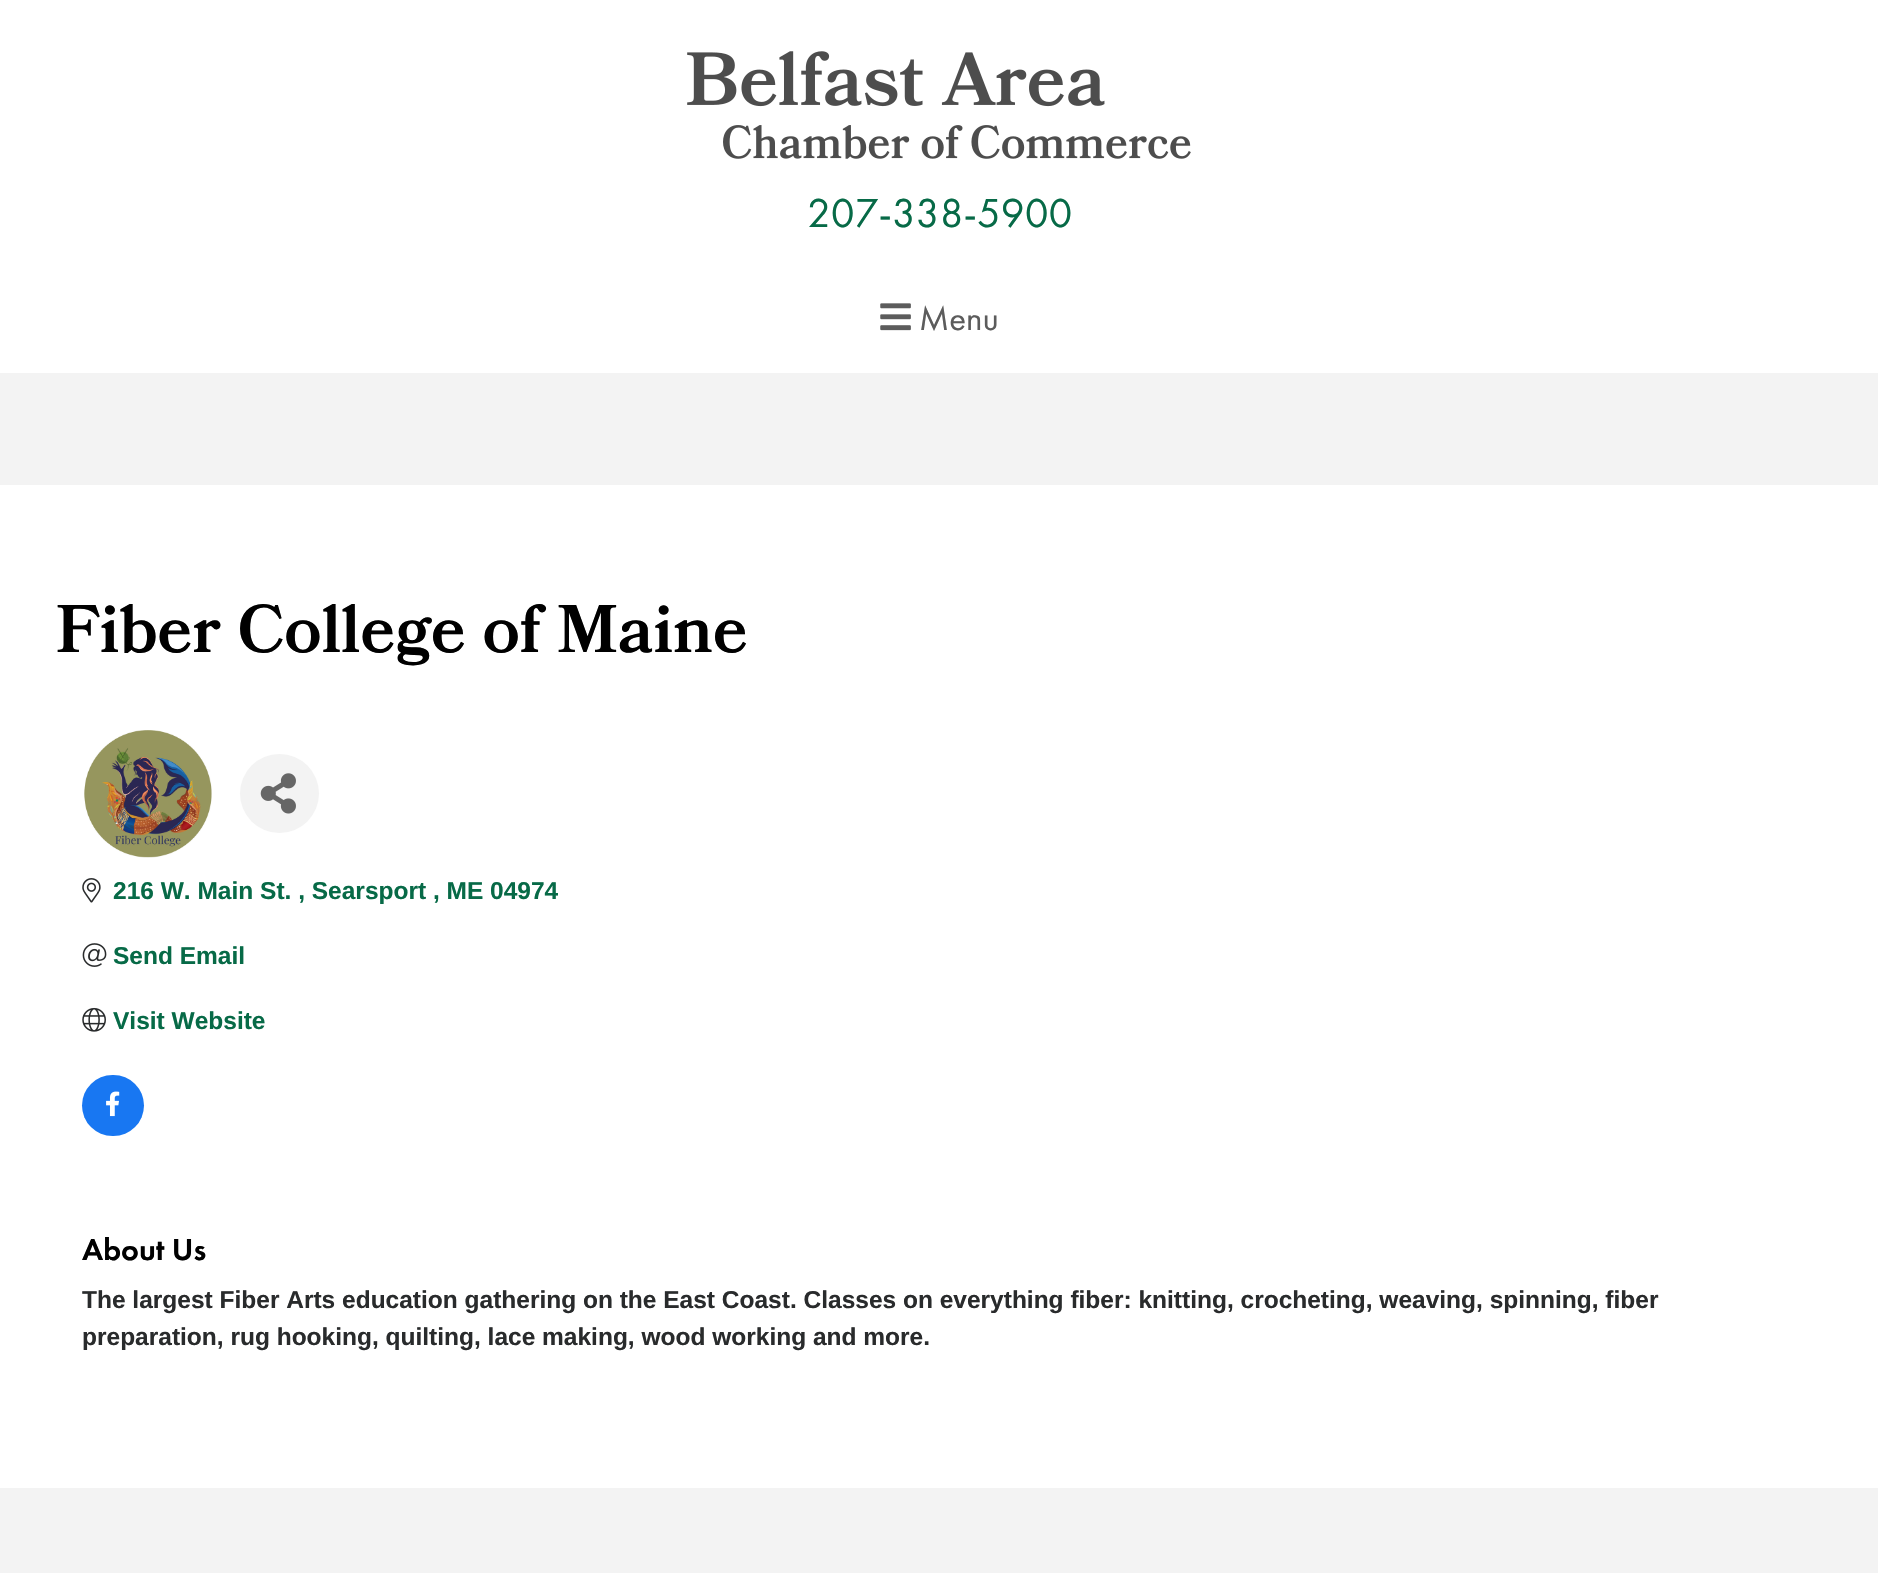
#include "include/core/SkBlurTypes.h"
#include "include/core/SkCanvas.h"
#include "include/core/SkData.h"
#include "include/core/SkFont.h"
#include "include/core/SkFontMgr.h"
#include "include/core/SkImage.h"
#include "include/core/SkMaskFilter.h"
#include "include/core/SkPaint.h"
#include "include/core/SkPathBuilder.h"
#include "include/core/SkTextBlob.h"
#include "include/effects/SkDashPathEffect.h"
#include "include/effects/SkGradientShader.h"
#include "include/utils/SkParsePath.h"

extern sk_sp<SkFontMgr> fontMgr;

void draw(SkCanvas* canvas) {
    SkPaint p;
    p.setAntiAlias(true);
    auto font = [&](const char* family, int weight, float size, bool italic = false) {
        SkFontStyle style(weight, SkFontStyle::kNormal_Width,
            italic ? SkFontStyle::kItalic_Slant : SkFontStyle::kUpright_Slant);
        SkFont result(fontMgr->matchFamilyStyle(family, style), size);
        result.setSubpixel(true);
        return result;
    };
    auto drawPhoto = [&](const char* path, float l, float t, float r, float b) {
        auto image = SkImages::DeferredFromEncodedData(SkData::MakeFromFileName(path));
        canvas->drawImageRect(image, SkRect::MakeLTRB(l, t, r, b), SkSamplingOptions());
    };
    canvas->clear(0xFFFFFFFF);
    drawPhoto("media/1.png", 687, 51, 1191, 159);
    auto font1 = font("Futura PT", 400, 42);
    p.setColor(0xFF076A47);
    canvas->drawString("207-338-5900", 807, 227, font1, p);
    drawPhoto("media/2.png", 880, 303, 911, 331);
    auto font2 = font("Futura PT", 400, 35);
    p.setColor(0xFF5C5C5C);
    canvas->drawString("Menu", 919, 330, font2, p);
    p.setColor(0xFFF3F3F3);
    canvas->drawRect(SkRect::MakeLTRB(0, 373, 1878, 1573), p);
    p.setColor(0xFFFFFFFF);
    canvas->drawRect(SkRect::MakeLTRB(0, 485, 1878, 1488), p);
    auto font3 = font("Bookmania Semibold", 600, 67.25f);
    p.setColor(0xFF000000);
    canvas->drawString("Fiber College of Maine", 56, 652, font3, p);
    drawPhoto("media/3.png", 84, 730, 212, 858);
    p.setColor(0xFFF3F3F3);
    canvas->drawCircle(279.5f, 793.5f, 39.5f, p);
    drawPhoto("media/4.png", 260, 773, 296, 814);
    drawPhoto("media/5.png", 82, 878, 101, 903);
    auto font4 = font("Liberation Sans", 700, 24.5f);
    p.setColor(0xFF076A47);
    canvas->drawString("216 W. Main St. , Searsport , ME 04974", 113, 899, font4, p);
    drawPhoto("media/6.png", 82, 943, 107, 967);
    canvas->drawString("Send Email", 113, 964, font4, p);
    drawPhoto("media/7.png", 82, 1007, 106, 1032);
    canvas->drawString("Visit Website", 113, 1029, font4, p);
    p.setColor(0xFF1877F2);
    canvas->drawRoundRect(SkRect::MakeLTRB(82, 1075, 144, 1136), 30.5f, 30.5f, p);
    drawPhoto("media/8.png", 106, 1091, 120, 1117);
    auto font5 = font("Futura PT", 500, 31.5f);
    p.setColor(0xFF000000);
    canvas->drawString("About Us", 82, 1260, font5, p);
    p.setColor(0xFF292B2C);
    canvas->drawString("The largest Fiber Arts education gathering on the East Coast. Classes on everything fiber: knitting, crocheting, weaving, spinning, fiber", 82, 1308, font4, p);
    canvas->drawString("preparation, rug hooking, quilting, lace making, wood working and more.", 82, 1345, font4, p);
}
